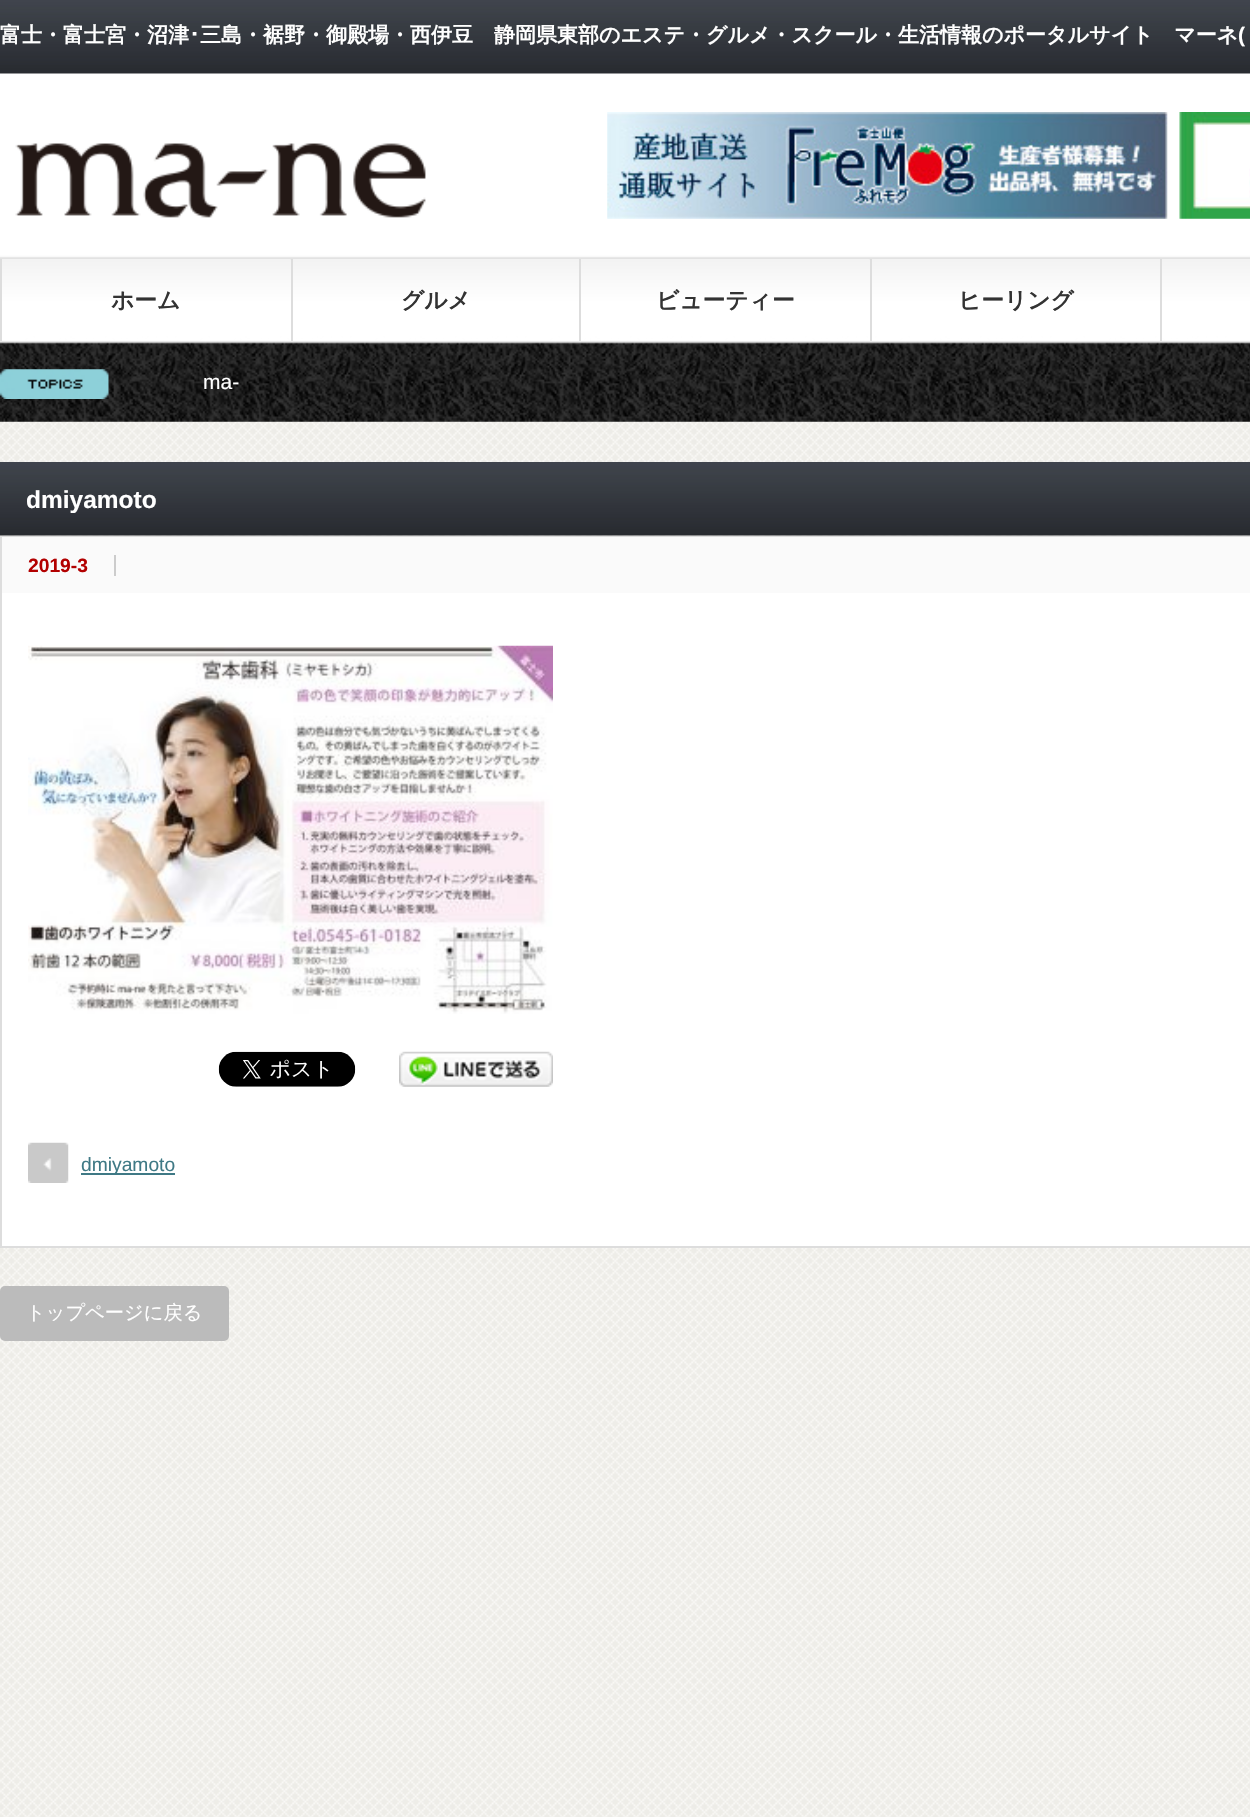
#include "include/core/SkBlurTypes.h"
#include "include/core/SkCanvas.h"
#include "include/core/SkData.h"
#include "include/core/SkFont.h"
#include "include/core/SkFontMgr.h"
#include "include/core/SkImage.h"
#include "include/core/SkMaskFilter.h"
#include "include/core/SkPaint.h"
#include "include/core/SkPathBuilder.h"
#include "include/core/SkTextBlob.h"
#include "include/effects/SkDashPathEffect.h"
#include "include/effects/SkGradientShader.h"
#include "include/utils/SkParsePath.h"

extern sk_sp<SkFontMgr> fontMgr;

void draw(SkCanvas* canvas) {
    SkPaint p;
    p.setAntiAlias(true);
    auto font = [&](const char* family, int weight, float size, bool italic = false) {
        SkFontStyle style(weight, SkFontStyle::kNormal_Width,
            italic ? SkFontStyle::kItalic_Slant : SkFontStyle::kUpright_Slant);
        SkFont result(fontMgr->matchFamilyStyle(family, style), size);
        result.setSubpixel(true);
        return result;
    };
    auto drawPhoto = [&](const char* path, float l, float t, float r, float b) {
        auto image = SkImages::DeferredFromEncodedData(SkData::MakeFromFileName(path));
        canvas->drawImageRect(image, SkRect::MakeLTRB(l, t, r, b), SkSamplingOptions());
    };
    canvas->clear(0xFFFFFFFF);
    drawPhoto("media/1.png", 0, 421, 1250, 1817);
    drawPhoto("media/2.png", 0, 0, 1250, 422);
    auto font1 = font("WenQuanYi Zen Hei", 700, 21);
    p.setColor(0xFFFFFFFF);
    canvas->drawString("富士・富士宮・沼津", 0, 42, font1, p);
    auto font2 = font("IPAGothic", 700, 21);
    canvas->drawString("･", 189, 42, font2, p);
    canvas->drawString("三島・裾野・御殿場・西伊豆　静岡県東部のエステ・グルメ・スクール・生活情報のポータルサイト　マーネ", 200, 42, font1, p);
    auto font3 = font("Liberation Sans", 700, 21);
    canvas->drawString("(", 1238, 42, font3, p);
    drawPhoto("media/3.png", 15, 143, 426, 218);
    drawPhoto("media/4.png", 607, 112, 1168, 219);
    drawPhoto("media/5.png", 1179, 112, 1250, 219);
    p.setColor(0xFFF3F3F3);
    canvas->drawRect(SkRect::MakeLTRB(0, 259, 290, 260), p);
    p.setColor(0xFFDDDDDD);
    canvas->drawRect(SkRect::MakeLTRB(0, 259, 2, 341), p);
    auto font4 = font("WenQuanYi Zen Hei", 700, 22.75f);
    p.setColor(0xFF333333);
    canvas->drawString("ホーム", 111, 308, font4, p);
    p.setColor(0xFFF3F3F3);
    canvas->drawRect(SkRect::MakeLTRB(291, 259, 579, 260), p);
    p.setColor(0xFFDDDDDD);
    canvas->drawRect(SkRect::MakeLTRB(291, 259, 293, 341), p);
    p.setColor(0xFF333333);
    canvas->drawString("グルメ", 401, 308, font4, p);
    p.setColor(0xFFF3F3F3);
    canvas->drawRect(SkRect::MakeLTRB(580, 259, 869, 260), p);
    p.setColor(0xFFDDDDDD);
    canvas->drawRect(SkRect::MakeLTRB(579, 259, 581, 341), p);
    p.setColor(0xFF333333);
    canvas->drawString("ビューティー", 656, 308, font4, p);
    p.setColor(0xFFF3F3F3);
    canvas->drawRect(SkRect::MakeLTRB(870, 259, 1160, 260), p);
    p.setColor(0xFFDDDDDD);
    canvas->drawRect(SkRect::MakeLTRB(870, 259, 872, 341), p);
    p.setColor(0xFF333333);
    canvas->drawString("ヒーリング", 958, 308, font4, p);
    p.setColor(0xFFF3F3F3);
    canvas->drawRect(SkRect::MakeLTRB(1161, 259, 1250, 260), p);
    p.setColor(0xFFDDDDDD);
    canvas->drawRect(SkRect::MakeLTRB(1160, 259, 1162, 341), p);
    drawPhoto("media/6.png", 0, 369, 109, 399);
    auto font5 = font("Liberation Sans", 400, 21);
    p.setColor(0xFFFFFFFF);
    canvas->drawString("ma-", 203, 389, font5, p);
    drawPhoto("media/7.png", 0, 462, 1250, 536);
    auto font6 = font("Liberation Sans", 700, 24.5f);
    canvas->drawString("dmiyamoto", 26, 508, font6, p);
    canvas->drawRect(SkRect::MakeLTRB(2, 593, 1250, 1246), p);
    p.setStyle(SkPaint::kStroke_Style);
    p.setStrokeWidth(2);
    p.setColor(0xFFDDDDDD);
    canvas->drawRect(SkRect::MakeLTRB(1, 537, 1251, 1247), p);
    p.setStyle(SkPaint::kFill_Style);
    p.setColor(0xFFFAFAFA);
    canvas->drawRect(SkRect::MakeLTRB(2, 537, 1250, 593), p);
    p.setColor(0xFFCCCCCC);
    canvas->drawRect(SkRect::MakeLTRB(114, 555, 116, 576), p);
    auto font7 = font("Liberation Sans", 700, 19.25f);
    p.setColor(0xFFB20000);
    canvas->drawString("2019-3", 28, 572, font7, p);
    drawPhoto("media/8.png", 28, 645, 553, 1014);
    drawPhoto("media/9.png", 218, 1051, 356, 1087);
    drawPhoto("media/10.png", 399, 1051, 553, 1087);
    drawPhoto("media/11.png", 28, 1142, 69, 1183);
    p.setColor(0xFF3F7985);
    canvas->drawRect(SkRect::MakeLTRB(81, 1173, 175, 1175), p);
    auto font8 = font("Liberation Sans", 400, 19.25f);
    canvas->drawString("dmiyamoto", 81, 1171, font8, p);
    p.setColor(0xFFBBBBBB);
    canvas->drawRoundRect(SkRect::MakeLTRB(0, 1286, 229, 1341), 5, 5, p);
    auto font9 = font("WenQuanYi Zen Hei", 500, 19.25f);
    p.setColor(0xFFFFFFFF);
    canvas->drawString("トップページに戻る", 26, 1319, font9, p);
}
